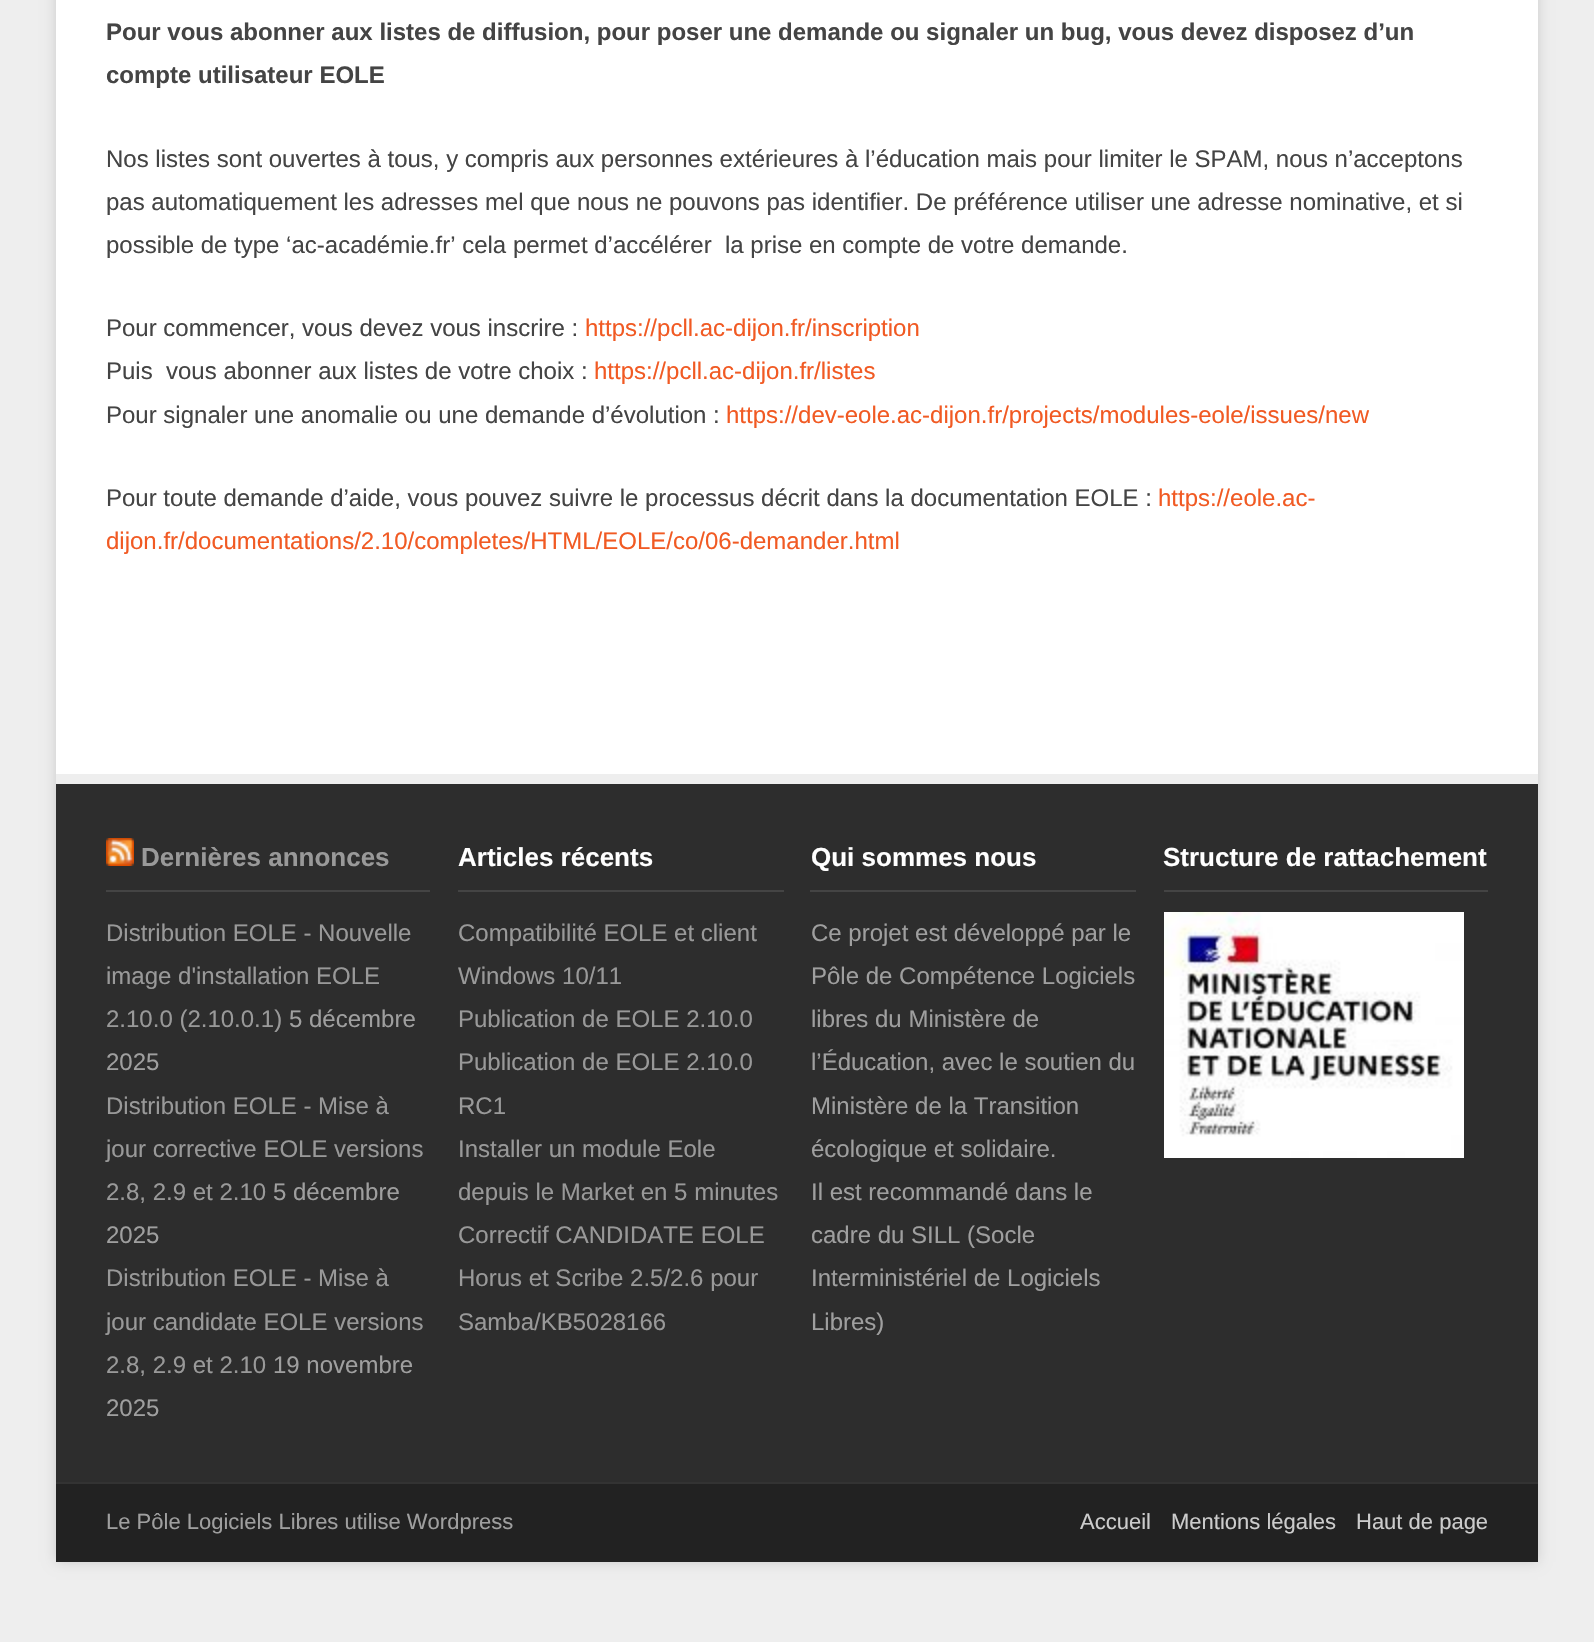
#include "include/core/SkBlurTypes.h"
#include "include/core/SkCanvas.h"
#include "include/core/SkData.h"
#include "include/core/SkFont.h"
#include "include/core/SkFontMgr.h"
#include "include/core/SkImage.h"
#include "include/core/SkMaskFilter.h"
#include "include/core/SkPaint.h"
#include "include/core/SkPathBuilder.h"
#include "include/core/SkTextBlob.h"
#include "include/effects/SkDashPathEffect.h"
#include "include/effects/SkGradientShader.h"
#include "include/utils/SkParsePath.h"

extern sk_sp<SkFontMgr> fontMgr;

void draw(SkCanvas* canvas) {
    SkPaint p;
    p.setAntiAlias(true);
    auto font = [&](const char* family, int weight, float size, bool italic = false) {
        SkFontStyle style(weight, SkFontStyle::kNormal_Width,
            italic ? SkFontStyle::kItalic_Slant : SkFontStyle::kUpright_Slant);
        SkFont result(fontMgr->matchFamilyStyle(family, style), size);
        result.setSubpixel(true);
        return result;
    };
    auto drawPhoto = [&](const char* path, float l, float t, float r, float b) {
        auto image = SkImages::DeferredFromEncodedData(SkData::MakeFromFileName(path));
        canvas->drawImageRect(image, SkRect::MakeLTRB(l, t, r, b), SkSamplingOptions());
    };
    canvas->clear(0xFFEEEEEE);
    p.setColor(0x26000000);
    p.setMaskFilter(SkMaskFilter::MakeBlur(kNormal_SkBlurStyle, 6));
    canvas->drawRect(SkRect::MakeLTRB(56, -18, 1538, 1562), p);
    p.setMaskFilter(nullptr);
    p.setColor(0xFFFFFFFF);
    canvas->drawRect(SkRect::MakeLTRB(56, 0, 1538, 774), p);
    auto font1 = font("Liberation Sans", 700, 24);
    p.setColor(0xFF444444);
    canvas->drawString("Pour vous abonner aux listes de diffusion, pour poser une demande ou signaler un bug, vous devez disposez d’un", 106, 40, font1, p);
    canvas->drawString("compte utilisateur EOLE", 106, 83, font1, p);
    auto font2 = font("Liberation Sans", 400, 24);
    {
        const struct { const char* s; float x, y; } items[] = {
            {"Nos listes sont ouvertes à tous, y compris aux personnes extérieures à l’éducation mais pour limiter le SPAM, nous n’acceptons", 106, 167},
            {"pas automatiquement les adresses mel que nous ne pouvons pas identifier. De préférence utiliser une adresse nominative, et si", 106, 210},
            {"possible de type ‘ac-académie.fr’ cela permet d’accélérer  la prise en compte de votre demande.", 106, 253},
            {"Pour commencer, vous devez vous inscrire :", 106, 336},
        };
        for (auto [s, x, y] : items) {
            canvas->drawString(s, x, y, font2, p);
        }
    }
    p.setColor(0xFFF15A23);
    canvas->drawString("https://pcll.ac-dijon.fr/inscription", 585, 336, font2, p);
    p.setColor(0xFF444444);
    canvas->drawString("Puis  vous abonner aux listes de votre choix :", 106, 379, font2, p);
    p.setColor(0xFFF15A23);
    canvas->drawString("https://pcll.ac-dijon.fr/listes", 594, 379, font2, p);
    p.setColor(0xFF444444);
    canvas->drawString("Pour signaler une anomalie ou une demande d’évolution :", 106, 423, font2, p);
    p.setColor(0xFFF15A23);
    canvas->drawString("https://dev-eole.ac-dijon.fr/projects/modules-eole/issues/new", 726, 423, font2, p);
    p.setColor(0xFF444444);
    canvas->drawString("Pour toute demande d’aide, vous pouvez suivre le processus décrit dans la documentation EOLE :", 106, 506, font2, p);
    p.setColor(0xFFF15A23);
    canvas->drawString("https://eole.ac-", 1158, 506, font2, p);
    canvas->drawString("dijon.fr/documentations/2.10/completes/HTML/EOLE/co/06-demander.html", 106, 549, font2, p);
    {
        const struct { float l, t, r, b; SkColor color; } items[] = {
            {56, 784, 1538, 1482, 0xFF2D2D2D},
            {56, 774, 1538, 784, 0xFFEEEEEE},
            {106, 890, 430, 892, 0xFF444444},
        };
        for (auto [l, t, r, b, color] : items) {
            p.setColor(color);
            canvas->drawRect(SkRect::MakeLTRB(l, t, r, b), p);
        }
    }
    drawPhoto("media/1.png", 106, 838, 134, 866);
    auto font3 = font("Liberation Sans", 700, 26);
    p.setColor(0xFF999999);
    canvas->drawString("Dernières annonces", 141, 866, font3, p);
    {
        const struct { const char* s; float x, y; } items[] = {
            {"Distribution EOLE - Nouvelle", 106, 941},
            {"image d'installation EOLE", 106, 984},
            {"2.10.0 (2.10.0.1)", 106, 1027},
        };
        for (auto [s, x, y] : items) {
            canvas->drawString(s, x, y, font2, p);
        }
    }
    p.setColor(0xFF9F9F9F);
    canvas->drawString("5 décembre", 289, 1027, font2, p);
    canvas->drawString("2025", 106, 1070, font2, p);
    p.setColor(0xFF999999);
    {
        const struct { const char* s; float x, y; } items[] = {
            {"Distribution EOLE - Mise à", 106, 1114},
            {"jour corrective EOLE versions", 106, 1157},
            {"2.8, 2.9 et 2.10", 106, 1200},
        };
        for (auto [s, x, y] : items) {
            canvas->drawString(s, x, y, font2, p);
        }
    }
    p.setColor(0xFF9F9F9F);
    canvas->drawString("5 décembre", 273, 1200, font2, p);
    canvas->drawString("2025", 106, 1243, font2, p);
    p.setColor(0xFF999999);
    {
        const struct { const char* s; float x, y; } items[] = {
            {"Distribution EOLE - Mise à", 106, 1286},
            {"jour candidate EOLE versions", 106, 1330},
            {"2.8, 2.9 et 2.10", 106, 1373},
        };
        for (auto [s, x, y] : items) {
            canvas->drawString(s, x, y, font2, p);
        }
    }
    p.setColor(0xFF9F9F9F);
    canvas->drawString("19 novembre", 273, 1373, font2, p);
    canvas->drawString("2025", 106, 1416, font2, p);
    p.setColor(0xFF444444);
    canvas->drawRect(SkRect::MakeLTRB(458, 890, 784, 892), p);
    p.setColor(0xFFFFFFFF);
    canvas->drawString("Articles récents", 458, 866, font3, p);
    p.setColor(0xFF999999);
    {
        const struct { const char* s; float x, y; } items[] = {
            {"Compatibilité EOLE et client", 458, 941},
            {"Windows 10/11", 458, 984},
            {"Publication de EOLE 2.10.0", 458, 1027},
            {"Publication de EOLE 2.10.0", 458, 1070},
            {"RC1", 458, 1114},
            {"Installer un module Eole", 458, 1157},
            {"depuis le Market en 5 minutes", 458, 1200},
            {"Correctif CANDIDATE EOLE", 458, 1243},
            {"Horus et Scribe 2.5/2.6 pour", 458, 1286},
            {"Samba/KB5028166", 458, 1330},
        };
        for (auto [s, x, y] : items) {
            canvas->drawString(s, x, y, font2, p);
        }
    }
    p.setColor(0xFF444444);
    canvas->drawRect(SkRect::MakeLTRB(810, 890, 1136, 892), p);
    p.setColor(0xFFFFFFFF);
    canvas->drawString("Qui sommes nous", 811, 866, font3, p);
    p.setColor(0xFF9F9F9F);
    {
        const struct { const char* s; float x, y; } items[] = {
            {"Ce projet est développé par le", 811, 941},
            {"Pôle de Compétence Logiciels", 811, 984},
            {"libres du Ministère de", 811, 1027},
            {"l’Éducation, avec le soutien du", 811, 1070},
            {"Ministère de la Transition", 811, 1114},
            {"écologique et solidaire.", 811, 1157},
            {"Il est recommandé dans le", 811, 1200},
            {"cadre du SILL (Socle", 811, 1243},
            {"Interministériel de Logiciels", 811, 1286},
            {"Libres)", 811, 1330},
        };
        for (auto [s, x, y] : items) {
            canvas->drawString(s, x, y, font2, p);
        }
    }
    p.setColor(0xFF444444);
    canvas->drawRect(SkRect::MakeLTRB(1164, 890, 1488, 892), p);
    p.setColor(0xFFFFFFFF);
    canvas->drawString("Structure de rattachement", 1163, 866, font3, p);
    drawPhoto("media/2.png", 1164, 912, 1464, 1158);
    p.setColor(0xFF222222);
    canvas->drawRect(SkRect::MakeLTRB(56, 1484, 1538, 1562), p);
    p.setColor(0xFF333333);
    canvas->drawRect(SkRect::MakeLTRB(56, 1482, 1538, 1484), p);
    auto font4 = font("Liberation Sans", 400, 22);
    p.setColor(0xFF9F9F9F);
    canvas->drawString("Le Pôle Logiciels Libres utilise Wordpress", 106, 1529, font4, p);
    p.setColor(0xFFCCCCCC);
    {
        const struct { const char* s; float x, y; } items[] = {
            {"Accueil", 1080, 1529},
            {"Mentions légales", 1171, 1529},
            {"Haut de page", 1356, 1529},
        };
        for (auto [s, x, y] : items) {
            canvas->drawString(s, x, y, font4, p);
        }
    }
}
